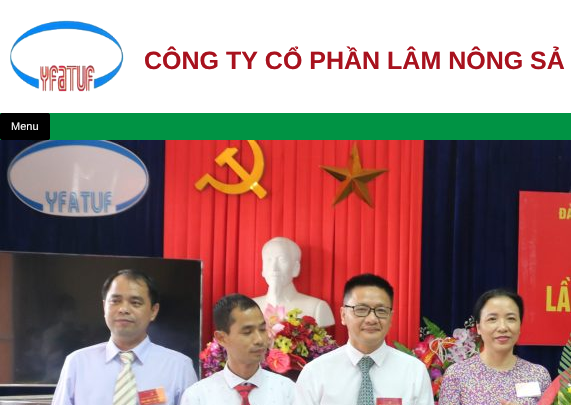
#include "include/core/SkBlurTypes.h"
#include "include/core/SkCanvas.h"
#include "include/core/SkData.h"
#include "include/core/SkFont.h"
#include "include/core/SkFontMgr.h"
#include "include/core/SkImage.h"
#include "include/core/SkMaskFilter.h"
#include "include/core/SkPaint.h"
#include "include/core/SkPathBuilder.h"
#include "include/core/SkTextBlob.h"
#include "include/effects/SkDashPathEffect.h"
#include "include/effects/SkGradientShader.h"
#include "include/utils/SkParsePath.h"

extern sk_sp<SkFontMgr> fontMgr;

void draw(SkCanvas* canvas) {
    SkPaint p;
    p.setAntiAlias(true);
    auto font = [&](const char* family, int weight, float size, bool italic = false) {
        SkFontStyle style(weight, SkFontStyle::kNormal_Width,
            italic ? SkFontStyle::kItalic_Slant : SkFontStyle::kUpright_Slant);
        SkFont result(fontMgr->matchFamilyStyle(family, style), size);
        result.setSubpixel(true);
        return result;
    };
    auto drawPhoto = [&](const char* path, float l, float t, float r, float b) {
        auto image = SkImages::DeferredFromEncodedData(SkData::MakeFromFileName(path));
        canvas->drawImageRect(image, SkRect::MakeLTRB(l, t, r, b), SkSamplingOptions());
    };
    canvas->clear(0xFFFFFFFF);
    drawPhoto("media/1.png", 10, 20, 124, 92);
    auto font1 = font("Liberation Sans", 700, 25);
    p.setColor(0xFFA8121E);
    canvas->drawString("CÔNG TY CỔ PHẦN LÂM NÔNG SẢ", 144, 69, font1, p);
    p.setColor(0xFF009344);
    canvas->drawRect(SkRect::MakeLTRB(0, 113, 571, 140), p);
    p.setColor(0xFF000000);
    canvas->drawRoundRect(SkRect::MakeLTRB(0.5f, 113.5f, 49.5f, 139.5f), 1.5f, 1.5f, p);
    p.setStyle(SkPaint::kStroke_Style);
    p.setStrokeWidth(1);
    canvas->drawRoundRect(SkRect::MakeLTRB(0.5f, 113.5f, 49.5f, 139.5f), 1.5f, 1.5f, p);
    auto font2 = font("Liberation Sans", 400, 11);
    p.setStyle(SkPaint::kFill_Style);
    p.setColor(0xFFFFFFFF);
    canvas->drawString("Menu", 11, 130, font2, p);
    drawPhoto("media/2.png", 0, 140, 571, 405);
}
